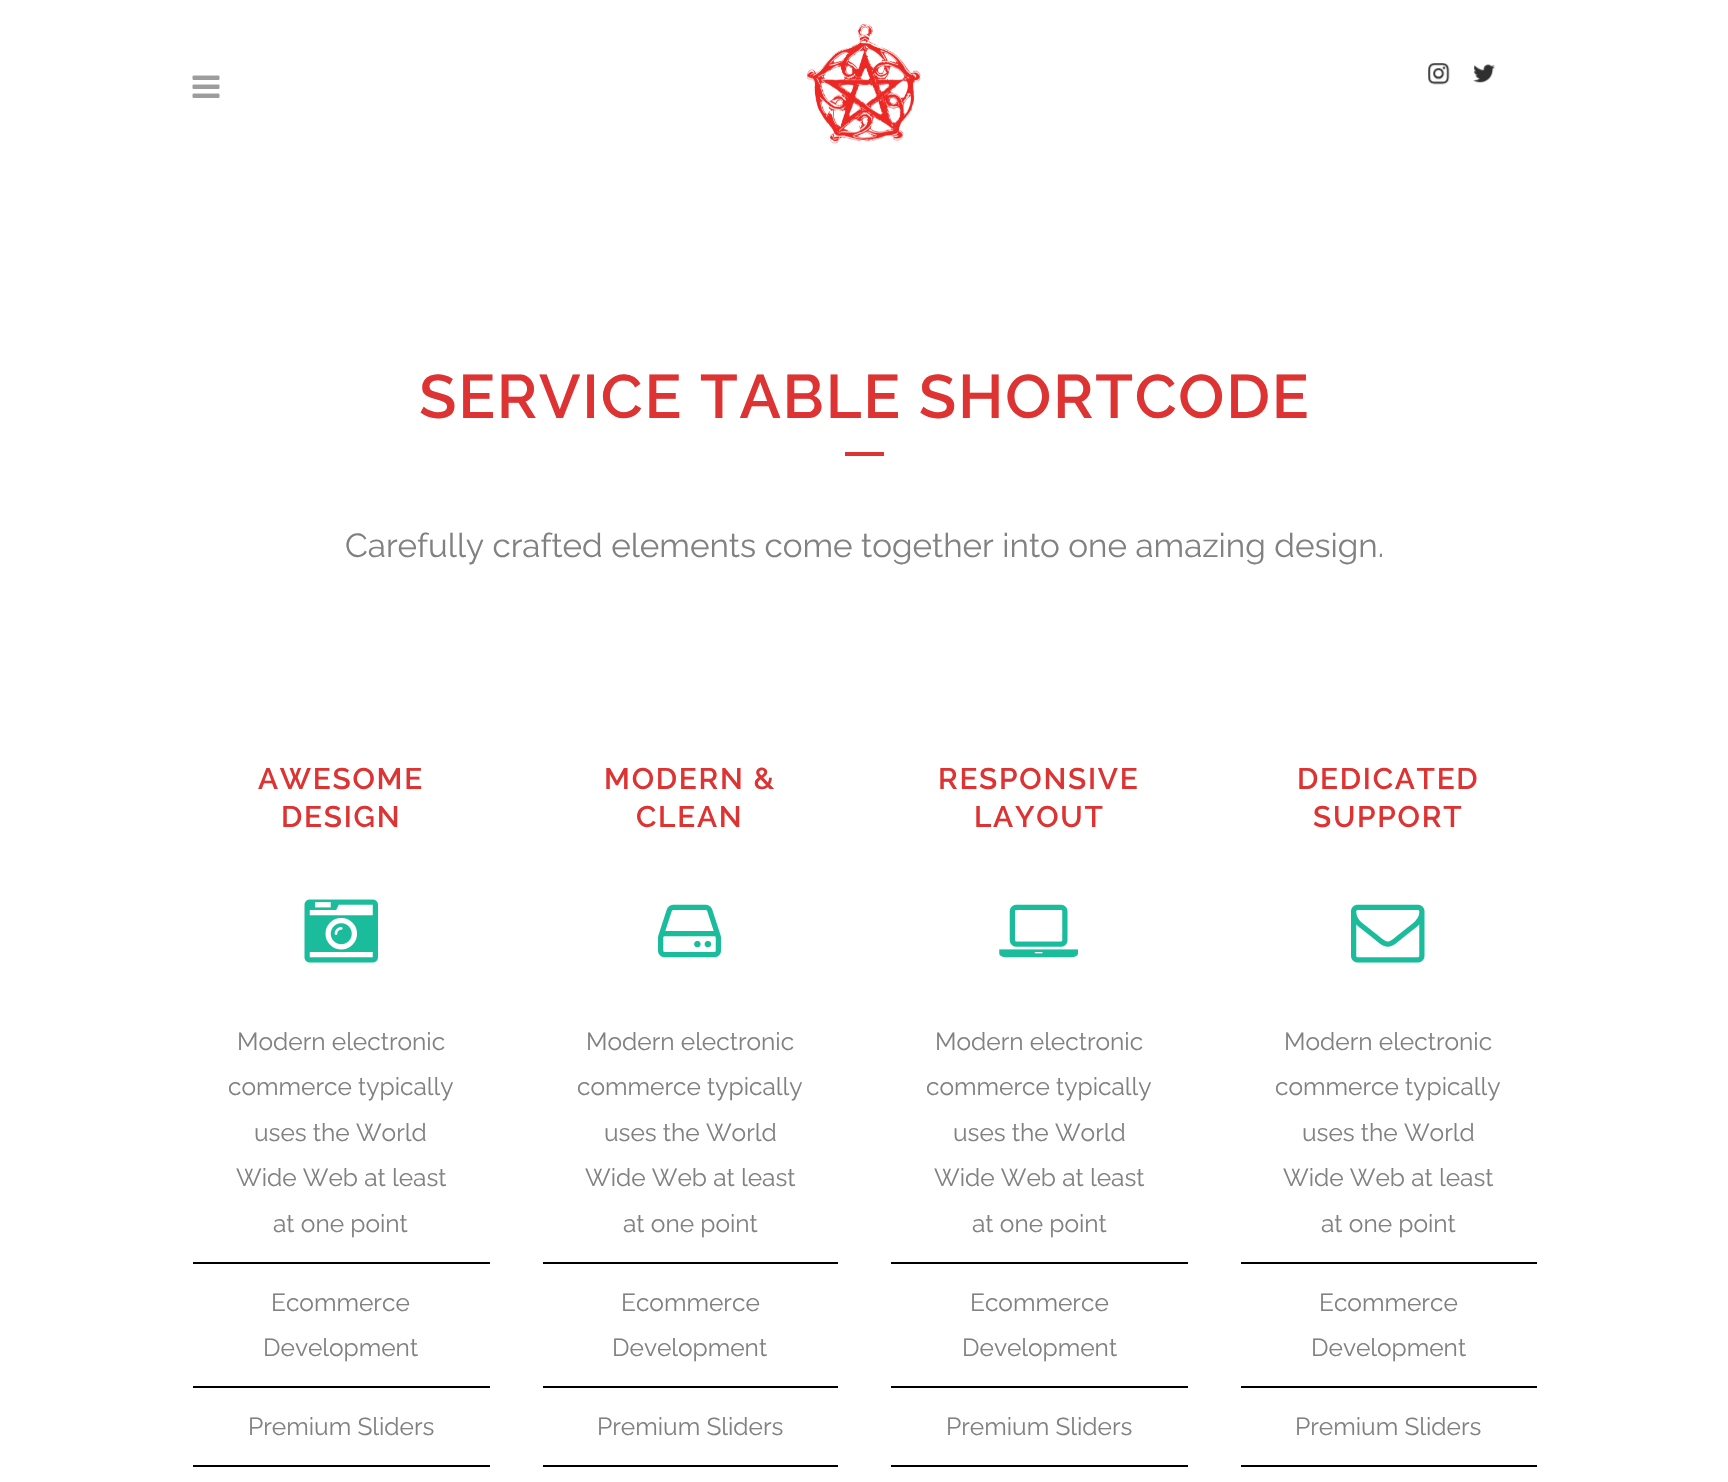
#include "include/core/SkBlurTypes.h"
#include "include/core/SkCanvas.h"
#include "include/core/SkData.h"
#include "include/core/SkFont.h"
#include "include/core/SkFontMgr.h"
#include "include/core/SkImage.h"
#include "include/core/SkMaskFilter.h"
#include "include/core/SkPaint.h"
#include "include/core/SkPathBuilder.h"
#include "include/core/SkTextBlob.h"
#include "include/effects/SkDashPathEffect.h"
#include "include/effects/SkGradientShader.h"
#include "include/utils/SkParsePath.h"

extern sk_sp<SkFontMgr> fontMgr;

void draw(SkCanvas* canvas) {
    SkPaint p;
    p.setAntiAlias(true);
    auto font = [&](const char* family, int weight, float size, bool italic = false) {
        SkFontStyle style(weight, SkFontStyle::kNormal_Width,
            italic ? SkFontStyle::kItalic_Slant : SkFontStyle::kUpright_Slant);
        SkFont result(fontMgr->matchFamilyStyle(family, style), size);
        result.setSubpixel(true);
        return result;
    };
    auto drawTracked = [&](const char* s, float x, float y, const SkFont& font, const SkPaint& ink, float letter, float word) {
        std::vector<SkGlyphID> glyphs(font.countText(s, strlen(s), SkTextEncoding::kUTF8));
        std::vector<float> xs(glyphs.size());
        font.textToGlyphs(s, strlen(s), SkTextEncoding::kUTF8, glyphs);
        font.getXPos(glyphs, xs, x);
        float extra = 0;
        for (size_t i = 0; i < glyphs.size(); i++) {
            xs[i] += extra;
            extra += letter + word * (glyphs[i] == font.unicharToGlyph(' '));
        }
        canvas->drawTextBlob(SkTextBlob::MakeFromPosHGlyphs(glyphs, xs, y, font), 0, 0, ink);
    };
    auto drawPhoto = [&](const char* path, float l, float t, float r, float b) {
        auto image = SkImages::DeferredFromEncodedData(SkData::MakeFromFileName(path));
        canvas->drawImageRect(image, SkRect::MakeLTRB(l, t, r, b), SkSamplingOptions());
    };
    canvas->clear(0xFFFFFFFF);
    drawPhoto("media/1.png", 192, 75, 220, 98);
    drawPhoto("media/2.png", 807, 24, 921, 144);
    drawPhoto("media/3.png", 1428, 63, 1450, 85);
    drawPhoto("media/4.png", 1473, 64, 1495, 83);
    auto font1 = font("Raleway", 600, 61.25f);
    p.setColor(0xFFDD3333);
    drawTracked("SERVICE TABLE SHORTCODE", 419, 418, font1, p, 1.75f, 0);
    canvas->drawRect(SkRect::MakeLTRB(845, 452, 884, 456), p);
    auto font2 = font("Raleway", 400, 33.25f);
    p.setColor(0xFF818181);
    canvas->drawString("Carefully crafted elements come together into one amazing design.", 345, 557, font2, p);
    auto font3 = font("Raleway", 600, 29.75f);
    p.setColor(0xFFDD3333);
    drawTracked("AWESOME", 258, 789, font3, p, 1.75f, 0);
    drawTracked("DESIGN", 281, 827, font3, p, 1.75f, 0);
    drawPhoto("media/5.png", 304, 899, 378, 963);
    p.setColor(0xFF000000);
    canvas->drawRect(SkRect::MakeLTRB(193, 1262, 490, 1264), p);
    auto font4 = font("Raleway", 400, 24.5f);
    p.setColor(0xFF818181);
    {
        const struct { const char* s; float x, y; } items[] = {
            {"Modern electronic", 237, 1050},
            {"commerce typically", 228, 1095},
            {"uses the World", 254, 1141},
            {"Wide Web at least", 236, 1186},
            {"at one point", 273, 1232},
        };
        for (auto [s, x, y] : items) {
            canvas->drawString(s, x, y, font4, p);
        }
    }
    p.setColor(0xFF000000);
    canvas->drawRect(SkRect::MakeLTRB(193, 1386, 490, 1388), p);
    p.setColor(0xFF818181);
    canvas->drawString("Ecommerce", 271, 1311, font4, p);
    canvas->drawString("Development", 263, 1356, font4, p);
    p.setColor(0xFF000000);
    canvas->drawRect(SkRect::MakeLTRB(193, 1465, 490, 1467), p);
    p.setColor(0xFF818181);
    canvas->drawString("Premium Sliders", 248, 1435, font4, p);
    p.setColor(0xFFDD3333);
    drawTracked("MODERN &", 604, 789, font3, p, 1.75f, 0);
    drawTracked("CLEAN", 636, 827, font3, p, 1.75f, 0);
    drawPhoto("media/6.png", 658, 904, 721, 958);
    p.setColor(0xFF000000);
    canvas->drawRect(SkRect::MakeLTRB(543, 1262, 838, 1264), p);
    p.setColor(0xFF818181);
    {
        const struct { const char* s; float x, y; } items[] = {
            {"Modern electronic", 586, 1050},
            {"commerce typically", 577, 1095},
            {"uses the World", 604, 1141},
            {"Wide Web at least", 585, 1186},
            {"at one point", 623, 1232},
        };
        for (auto [s, x, y] : items) {
            canvas->drawString(s, x, y, font4, p);
        }
    }
    p.setColor(0xFF000000);
    canvas->drawRect(SkRect::MakeLTRB(543, 1386, 838, 1388), p);
    p.setColor(0xFF818181);
    canvas->drawString("Ecommerce", 621, 1311, font4, p);
    canvas->drawString("Development", 612, 1356, font4, p);
    p.setColor(0xFF000000);
    canvas->drawRect(SkRect::MakeLTRB(543, 1465, 838, 1467), p);
    p.setColor(0xFF818181);
    canvas->drawString("Premium Sliders", 597, 1435, font4, p);
    p.setColor(0xFFDD3333);
    drawTracked("RESPONSIVE", 938, 789, font3, p, 1.75f, 0);
    drawTracked("LAYOUT", 974, 827, font3, p, 1.75f, 0);
    drawPhoto("media/7.png", 999, 904, 1078, 958);
    p.setColor(0xFF000000);
    canvas->drawRect(SkRect::MakeLTRB(891, 1262, 1188, 1264), p);
    p.setColor(0xFF818181);
    {
        const struct { const char* s; float x, y; } items[] = {
            {"Modern electronic", 935, 1050},
            {"commerce typically", 926, 1095},
            {"uses the World", 953, 1141},
            {"Wide Web at least", 934, 1186},
            {"at one point", 972, 1232},
        };
        for (auto [s, x, y] : items) {
            canvas->drawString(s, x, y, font4, p);
        }
    }
    p.setColor(0xFF000000);
    canvas->drawRect(SkRect::MakeLTRB(891, 1386, 1188, 1388), p);
    p.setColor(0xFF818181);
    canvas->drawString("Ecommerce", 970, 1311, font4, p);
    canvas->drawString("Development", 962, 1356, font4, p);
    p.setColor(0xFF000000);
    canvas->drawRect(SkRect::MakeLTRB(891, 1465, 1188, 1467), p);
    p.setColor(0xFF818181);
    canvas->drawString("Premium Sliders", 946, 1435, font4, p);
    p.setColor(0xFFDD3333);
    drawTracked("DEDICATED", 1297, 789, font3, p, 1.75f, 0);
    drawTracked("SUPPORT", 1313, 827, font3, p, 1.75f, 0);
    drawPhoto("media/8.png", 1351, 904, 1425, 963);
    p.setColor(0xFF000000);
    canvas->drawRect(SkRect::MakeLTRB(1241, 1262, 1537, 1264), p);
    p.setColor(0xFF818181);
    {
        const struct { const char* s; float x, y; } items[] = {
            {"Modern electronic", 1284, 1050},
            {"commerce typically", 1275, 1095},
            {"uses the World", 1302, 1141},
            {"Wide Web at least", 1283, 1186},
            {"at one point", 1321, 1232},
        };
        for (auto [s, x, y] : items) {
            canvas->drawString(s, x, y, font4, p);
        }
    }
    p.setColor(0xFF000000);
    canvas->drawRect(SkRect::MakeLTRB(1241, 1386, 1537, 1388), p);
    p.setColor(0xFF818181);
    canvas->drawString("Ecommerce", 1319, 1311, font4, p);
    canvas->drawString("Development", 1311, 1356, font4, p);
    p.setColor(0xFF000000);
    canvas->drawRect(SkRect::MakeLTRB(1241, 1465, 1537, 1467), p);
    p.setColor(0xFF818181);
    canvas->drawString("Premium Sliders", 1295, 1435, font4, p);
}
